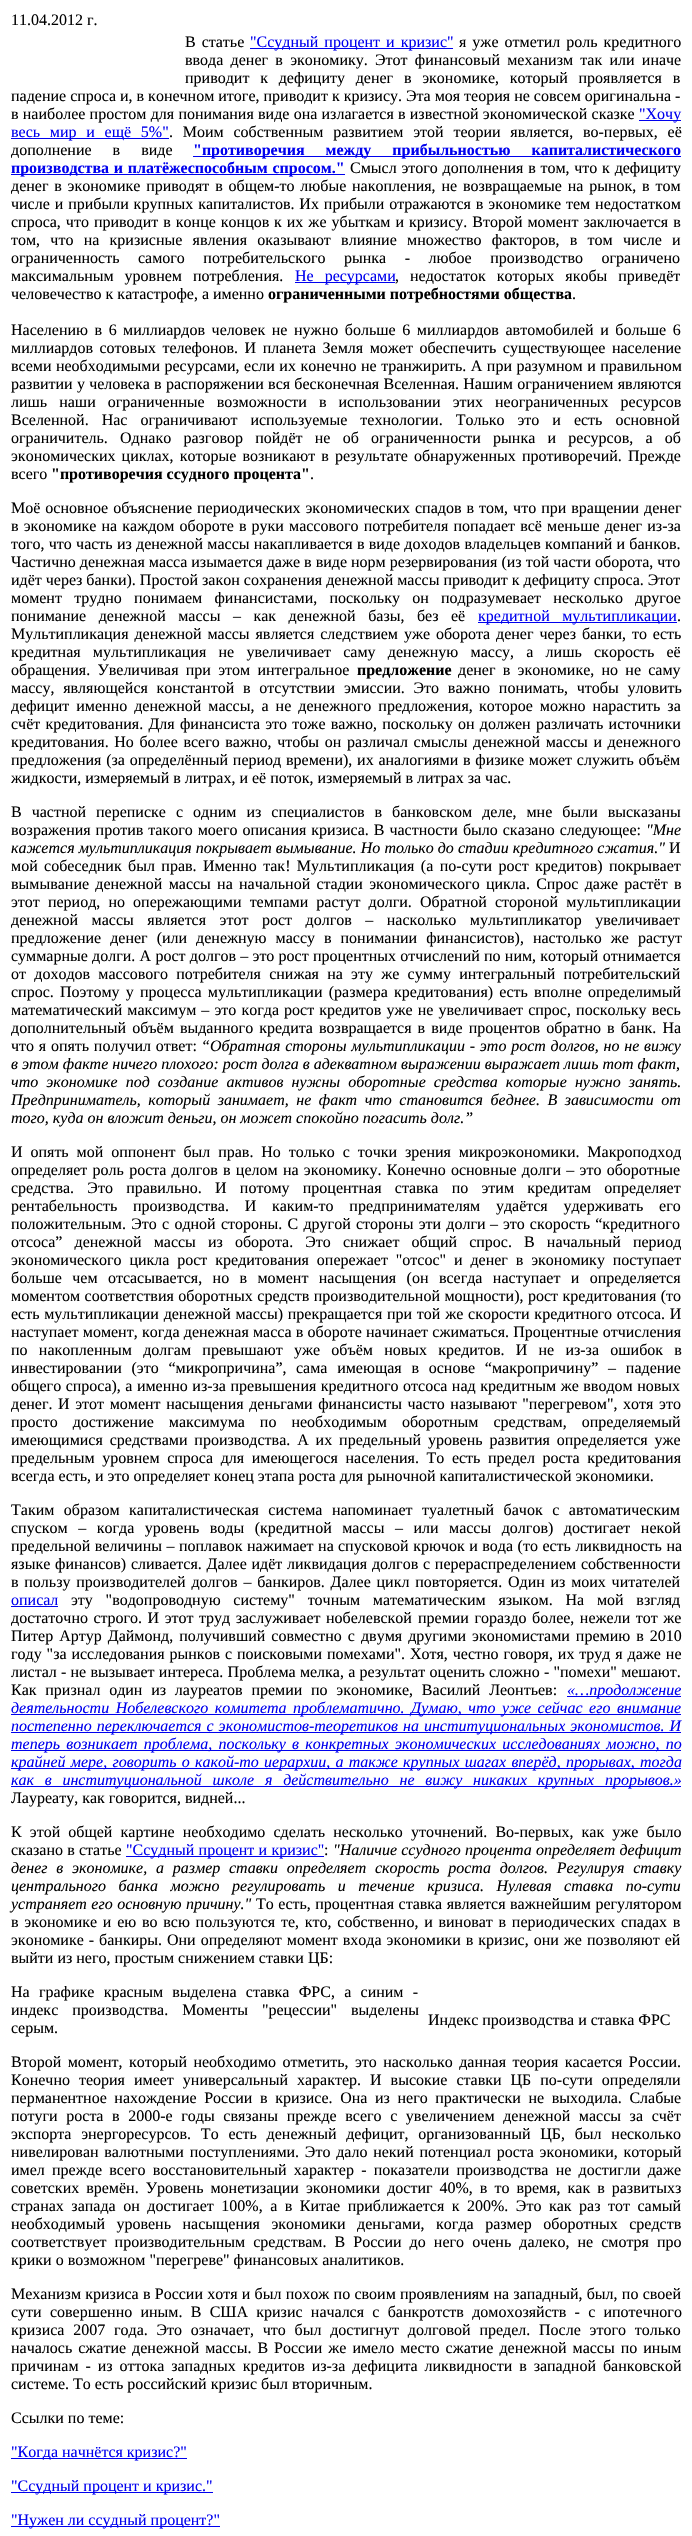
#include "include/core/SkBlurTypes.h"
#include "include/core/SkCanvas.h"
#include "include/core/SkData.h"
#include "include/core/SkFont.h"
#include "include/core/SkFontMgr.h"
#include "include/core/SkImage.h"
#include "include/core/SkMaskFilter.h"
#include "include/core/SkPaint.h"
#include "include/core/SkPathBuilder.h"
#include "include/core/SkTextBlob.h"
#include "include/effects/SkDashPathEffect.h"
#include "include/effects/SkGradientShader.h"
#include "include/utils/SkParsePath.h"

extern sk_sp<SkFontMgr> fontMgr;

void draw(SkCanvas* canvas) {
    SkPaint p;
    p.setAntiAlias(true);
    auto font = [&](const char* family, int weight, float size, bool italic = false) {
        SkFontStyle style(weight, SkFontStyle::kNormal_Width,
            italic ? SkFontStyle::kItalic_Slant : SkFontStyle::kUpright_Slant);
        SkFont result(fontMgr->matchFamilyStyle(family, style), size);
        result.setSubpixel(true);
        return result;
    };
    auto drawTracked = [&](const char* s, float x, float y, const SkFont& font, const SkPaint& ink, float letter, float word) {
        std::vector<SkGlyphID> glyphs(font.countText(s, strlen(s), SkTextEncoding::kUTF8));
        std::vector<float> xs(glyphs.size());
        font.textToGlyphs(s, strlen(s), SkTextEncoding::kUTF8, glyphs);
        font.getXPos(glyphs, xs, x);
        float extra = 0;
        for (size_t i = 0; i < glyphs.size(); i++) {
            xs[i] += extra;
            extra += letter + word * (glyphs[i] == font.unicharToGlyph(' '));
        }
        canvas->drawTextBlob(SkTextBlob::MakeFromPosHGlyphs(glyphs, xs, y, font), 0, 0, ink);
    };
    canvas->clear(0xFFFFFFFF);
    auto font1 = font("Liberation Serif", 400, 16);
    p.setColor(0xFF000000);
    canvas->drawString("11.04.2012 г.", 11, 25, font1, p);
    drawTracked("В статье", 185, 47, font1, p, 0, 2);
    p.setColor(0xFF0000EE);
    canvas->drawRect(SkRect::MakeLTRB(250, 48, 453, 49), p);
    drawTracked("\"Ссудный процент и кризис\"", 250, 47, font1, p, 0, 2);
    p.setColor(0xFF000000);
    drawTracked("я уже отметил роль кредитного", 459, 47, font1, p, 0, 2);
    drawTracked("ввода денег в экономику. Этот финансовый механизм так или иначе", 185, 65, font1, p, 0, 3.25f);
    drawTracked("приводит к дефициту денег в экономике, который проявляется в", 185, 83, font1, p, 0, 6.75f);
    canvas->drawString("падение спроса и, в конечном итоге, приводит к кризису. Эта моя теория не совсем оригинальна -", 11, 101, font1, p);
    drawTracked("в наиболее простом для понимания виде она излагается в известной экономической сказке", 11, 119, font1, p, 0, 0.25f);
    p.setColor(0xFF0000EE);
    canvas->drawRect(SkRect::MakeLTRB(639, 120, 681, 121), p);
    canvas->drawString("\"Хочу", 639, 119, font1, p);
    canvas->drawRect(SkRect::MakeLTRB(11, 138, 169, 139), p);
    drawTracked("весь мир и ещё 5%\"", 11, 137, font1, p, 0, 5.75f);
    p.setColor(0xFF000000);
    drawTracked(". Моим собственным развитием этой теории является, во-первых, её", 169, 137, font1, p, 0, 5.75f);
    drawTracked("дополнение в виде", 11, 155, font1, p, 0, 17);
    p.setColor(0xFF0000EE);
    canvas->drawRect(SkRect::MakeLTRB(193, 156, 681, 157), p);
    auto font2 = font("Liberation Serif", 700, 16);
    drawTracked("\"противоречия между прибыльностью капиталистического", 193, 155, font2, p, 0, 17);
    canvas->drawRect(SkRect::MakeLTRB(11, 174, 345, 175), p);
    drawTracked("производства и платёжеспособным спросом.\"", 11, 173, font2, p, 0, 0.75f);
    p.setColor(0xFF000000);
    drawTracked("Смысл этого дополнения в том, что к дефициту", 350, 173, font1, p, 0, 0.75f);
    drawTracked("денег в экономике приводят в общем-то любые накопления, не возвращаемые на рынок, в том", 11, 191, font1, p, 0, 1.8f);
    drawTracked("числе и прибыли крупных капиталистов. Их прибыли отражаются в экономике тем недостатком", 11, 209, font1, p, 0, 0.9f);
    drawTracked("спроса, что приводит в конце концов", 11, 227, font1, p, 0, 1);
    drawTracked("к их же убыткам и кризису. Второй момент заключается в", 274, 227, font1, p, 0, 1);
    drawTracked("том, что на кризисные явления оказывают влияние множество факторов, в том числе и", 11, 245, font1, p, 0, 6.25f);
    drawTracked("ограниченность самого потребительского рынка - любое производство ограничено", 11, 263, font1, p, 0, 14.5f);
    drawTracked("максимальным уровнем потребления.", 11, 281, font1, p, 0, 7);
    p.setColor(0xFF0000EE);
    canvas->drawRect(SkRect::MakeLTRB(295, 282, 395, 283), p);
    drawTracked("Не ресурсами", 295, 281, font1, p, 0, 7);
    p.setColor(0xFF000000);
    drawTracked(", недостаток которых якобы приведёт", 395, 281, font1, p, 0, 7);
    canvas->drawString("человечество к катастрофе, а именно", 11, 299, font1, p);
    canvas->drawString("ограниченными потребностями общества", 268, 299, font2, p);
    canvas->drawString(".", 572, 299, font1, p);
    drawTracked("Населению в 6", 11, 335, font1, p, 0, 2.6f);
    drawTracked("миллиардов человек не нужно больше 6 миллиардов автомобилей и больше 6", 123, 335, font1, p, 0, 2.6f);
    drawTracked("миллиардов сотовых телефонов. И планета Земля может обеспечить существующее население", 11, 353, font1, p, 0, 2.5f);
    drawTracked("всеми необходимыми ресурсами, если их конечно не транжирить. А при разумном и правильном", 11, 371, font1, p, 0, 0.5f);
    drawTracked("развитии у человека в распоряжении вся бесконечная Вселенная. Нашим ограничением являются", 11, 389, font1, p, 0, 0.25f);
    drawTracked("лишь наши ограниченные возможности в использовании этих неограниченных ресурсов", 11, 407, font1, p, 0, 8);
    drawTracked("Вселенной. Нас ограничивают используемые технологии. Только это и есть основной", 11, 425, font1, p, 0, 9);
    drawTracked("ограничитель. Однако разговор пойдёт не об ограниченности рынка и ресурсов, а об", 11, 443, font1, p, 0, 8.25f);
    drawTracked("экономических циклах, которые возникают в результате обнаруженных противоречий. Прежде", 11, 461, font1, p, 0, 2.1f);
    canvas->drawString("всего", 11, 479, font1, p);
    canvas->drawString("\"противоречия ссудного процента\"", 51, 479, font2, p);
    canvas->drawString(".", 310, 479, font1, p);
    drawTracked("Моё основное объяснение периодических экономических спадов в том, что при вращении денег", 11, 513, font1, p, 0, 1);
    drawTracked("в экономике на каждом обороте в руки массового потребителя попадает всё меньше денег из-за", 11, 531, font1, p, 0, 1.1f);
    drawTracked("того, что часть из денежной массы накапливается в виде доходов владельцев компаний и банков.", 11, 549, font1, p, 0, 0.25f);
    canvas->drawString("Частично денежная масса изымается даже в виде норм резервирования (из той части оборота, что", 11, 567, font1, p);
    canvas->drawString("идёт через банки). Простой закон сохранения денежной массы приводит к дефициту спроса. Этот", 11, 585, font1, p);
    drawTracked("момент трудно понимаем финансистами, поскольку он подразумевает несколько", 11, 603, font1, p, 0, 8.25f);
    canvas->drawString("другое", 635, 603, font1, p);
    drawTracked("понимание денежной массы – как денежной базы, без её", 11, 621, font1, p, 0, 8.5f);
    p.setColor(0xFF0000EE);
    canvas->drawRect(SkRect::MakeLTRB(478, 622, 677, 623), p);
    drawTracked("кредитной мультипликации", 478, 621, font1, p, 0, 8.5f);
    p.setColor(0xFF000000);
    canvas->drawString(".", 677, 621, font1, p);
    drawTracked("Мультипликация денежной массы является следствием уже оборота денег через банки, то есть", 11, 639, font1, p, 0, 1.9f);
    drawTracked("кредитная мультипликация не увеличивает саму денежную массу, а лишь скорость её", 11, 657, font1, p, 0, 8.25f);
    drawTracked("обращения. Увеличивая при этом интегральное", 11, 675, font1, p, 0, 3.25f);
    canvas->drawString("предложение", 357, 675, font2, p);
    drawTracked("денег в экономике, но не саму", 458, 675, font1, p, 0, 3.25f);
    drawTracked("массу, являющейся константой в отсутствии эмиссии. Это важно понимать, чтобы уловить", 11, 693, font1, p, 0, 4.75f);
    drawTracked("дефицит именно денежной массы, а не денежного предложения,", 11, 711, font1, p, 0, 3);
    drawTracked("которое можно нарастить за", 479, 711, font1, p, 0, 3);
    drawTracked("счёт кредитования. Для финансиста это тоже важно, поскольку он должен различать источники", 11, 729, font1, p, 0, 1.25f);
    drawTracked("кредитования. Но более всего важно, чтобы он различал смыслы денежной массы и денежного", 11, 747, font1, p, 0, 1.6f);
    drawTracked("предложения (за определённый период времени), их аналогиями в физике может служить объём", 11, 765, font1, p, 0, 0.75f);
    canvas->drawString("жидкости, измеряемый в литрах, и её поток, измеряемый в литрах за час.", 11, 783, font1, p);
    drawTracked("В частной переписке с одним из специалистов в банковском деле, мне были высказаны", 11, 817, font1, p, 0, 6);
    drawTracked("возражения против такого моего описания кризиса. В частности было сказано следующее:", 11, 835, font1, p, 0, 1);
    auto font3 = font("Liberation Serif", 400, 16, true);
    canvas->drawString("\"Мне", 646, 835, font3, p);
    drawTracked("кажется мультипликация покрывает вымывание. Но только до стадии кредитного сжатия.\"", 11, 853, font3, p, 0, 0.1f);
    canvas->drawString("И", 669, 853, font1, p);
    drawTracked("мой собеседник был прав. Именно так! Мультипликация (а по-сути рост кредитов) покрывает", 11, 871, font1, p, 0, 2.4f);
    drawTracked("вымывание денежной массы на начальной стадии экономического цикла. Спрос даже растёт в", 11, 889, font1, p, 0, 2.25f);
    drawTracked("этот период, но опережающими темпами растут долги. Обратной стороной мультипликации", 11, 907, font1, p, 0, 4.1f);
    drawTracked("денежной массы является этот рост долгов – насколько мультипликатор увеличивает", 11, 925, font1, p, 0, 9.5f);
    drawTracked("предложение денег (или денежную массу в понимании финансистов), настолько же растут", 11, 943, font1, p, 0, 5);
    drawTracked("суммарные долги. А рост долгов – это рост процентных отчислений по ним, который отнимается", 11, 961, font1, p, 0, 0.25f);
    drawTracked("от доходов массового потребителя снижая на эту же сумму интегральный потребительский", 11, 979, font1, p, 0, 4.25f);
    drawTracked("спрос. Поэтому у процесса мультипликации (размера кредитования) есть вполне определимый", 11, 997, font1, p, 0, 2.25f);
    drawTracked("математический максимум – это когда рост кредитов уже не увеличивает спрос, поскольку весь", 11, 1015, font1, p, 0, 1.1f);
    drawTracked("дополнительный объём выданного кредита возвращается в виде процентов обратно в банк. На", 11, 1033, font1, p, 0, 2.1f);
    drawTracked("что я опять получил ответ:", 11, 1051, font1, p, 0, 0.75f);
    drawTracked("“Обратная стороны мультипликации - это рост долгов, но не вижу", 201, 1051, font3, p, 0, 0.75f);
    canvas->drawString("в этом факте ничего плохого: рост долга в адекватном выражении выражает лишь тот факт,", 11, 1069, font3, p);
    drawTracked("что экономике под создание активов нужны оборотные средства которые нужно занять.", 11, 1087, font3, p, 0, 4.1f);
    drawTracked("Предприниматель, который занимает, не факт что становится беднее. В зависимости от", 11, 1105, font3, p, 0, 3.5f);
    canvas->drawString("того, куда он вложит деньги, он может спокойно погасить долг.”", 11, 1123, font3, p);
    drawTracked("И опять мой оппонент был прав. Но только с точки зрения микроэкономики. Макроподход", 11, 1157, font1, p, 0, 3.9f);
    drawTracked("определяет роль роста долгов в целом на экономику. Конечно основные долги – это оборотные", 11, 1175, font1, p, 0, 1.25f);
    drawTracked("средства. Это правильно. И потому процентная ставка по этим кредитам определяет", 11, 1193, font1, p, 0, 9.25f);
    drawTracked("рентабельность производства. И каким-то предпринимателям удаётся удерживать его", 11, 1211, font1, p, 0, 11.75f);
    drawTracked("положительным. Это с одной стороны. С другой стороны эти долги", 11, 1229, font1, p, 0, 1.25f);
    drawTracked("– это скорость “кредитного", 490, 1229, font1, p, 0, 1);
    drawTracked("отсоса” денежной массы из оборота. Это снижает общий спрос. В начальный период", 11, 1247, font1, p, 0, 8.1f);
    drawTracked("экономического цикла рост кредитования опережает \"отсос\" и денег в экономику поступает", 11, 1265, font1, p, 0, 3.9f);
    drawTracked("больше чем отсасывается, но в момент насыщения (он всегда наступает и определяется", 11, 1283, font1, p, 0, 6.4f);
    drawTracked("моментом соответствия оборотных средств производительной мощности), рост кредитования (то", 11, 1301, font1, p, 0, 0.5f);
    drawTracked("есть мультипликации денежной массы) прекращается при той же скорости кредитного отсоса. И", 11, 1319, font1, p, 0, 0.75f);
    drawTracked("наступает момент, когда денежная масса в обороте начинает сжиматься. Процентные отчисления", 11, 1337, font1, p, 0, 0.25f);
    drawTracked("по накопленным долгам превышают уже объём новых кредитов. И не из-за ошибок в", 11, 1355, font1, p, 0, 7.25f);
    drawTracked("инвестировании (это “микропричина”,", 11, 1373, font1, p, 0, 5.75f);
    drawTracked("сама имеющая в основе “макропричину” – падение", 296, 1373, font1, p, 0, 5.75f);
    drawTracked("общего спроса), а именно из-за превышения кредитного отсоса над кредитным же вводом новых", 11, 1391, font1, p, 0, 0.5f);
    drawTracked("денег. И этот момент насыщения деньгами финансисты часто называют \"перегревом\", хотя это", 11, 1409, font1, p, 0, 1.6f);
    drawTracked("просто достижение максимума по необходимым оборотным средствам, определяемый", 11, 1427, font1, p, 0, 11);
    drawTracked("имеющимися средствами производства. А их предельный уровень развития определяется уже", 11, 1445, font1, p, 0, 2.9f);
    drawTracked("предельным уровнем спроса для имеющегося населения. То есть предел роста кредитования", 11, 1463, font1, p, 0, 3.6f);
    canvas->drawString("всегда есть, и это определяет конец этапа роста для рыночной капиталистической экономики.", 11, 1481, font1, p);
    drawTracked("Таким образом капиталистическая система напоминает туалетный бачок с автоматическим", 11, 1515, font1, p, 0, 5.5f);
    drawTracked("спуском – когда уровень воды (кредитной массы – или массы долгов) достигает некой", 11, 1533, font1, p, 0, 6.5f);
    drawTracked("предельной величины – поплавок нажимает на", 11, 1551, font1, p, 0, 0.5f);
    drawTracked("спусковой крючок и вода (то есть ликвидность на", 338, 1551, font1, p, 0, 0.5f);
    drawTracked("языке финансов) сливается. Далее идёт ликвидация долгов с перераспределением собственности", 11, 1569, font1, p, 0, 0.75f);
    drawTracked("в пользу производителей долгов – банкиров. Далее цикл повторяется. Один из моих читателей", 11, 1587, font1, p, 0, 1.75f);
    p.setColor(0xFF0000EE);
    canvas->drawString("описал", 11, 1605, font1, p);
    canvas->drawRect(SkRect::MakeLTRB(11, 1606, 58, 1607), p);
    p.setColor(0xFF000000);
    drawTracked("эту \"водопроводную систему\" точным математическим языком. На мой взгляд", 71, 1605, font1, p, 0, 8.75f);
    drawTracked("достаточно строго. И этот труд заслуживает нобелевской", 11, 1623, font1, p, 0, 1.5f);
    drawTracked("премии гораздо более, нежели тот же", 418, 1623, font1, p, 0, 1.5f);
    drawTracked("Питер Артур Даймонд, получивший совместно с двумя другими экономистами премию в 2010", 11, 1641, font1, p, 0, 2);
    drawTracked("году \"за исследования рынков с поисковыми помехами\". Хотя, честно говоря, их труд я даже не", 11, 1659, font1, p, 0, 0.9f);
    drawTracked("листал - не вызывает интереса. Проблема мелка, а результат оценить сложно - \"помехи\" мешают.", 11, 1677, font1, p, 0, 0.25f);
    drawTracked("Как признал один из лауреатов премии по экономике, Василий Леонтьев:", 11, 1695, font1, p, 0, 4.75f);
    p.setColor(0xFF0000EE);
    canvas->drawRect(SkRect::MakeLTRB(567, 1696, 681, 1697), p);
    canvas->drawString("«…продолжение", 567, 1695, font3, p);
    canvas->drawRect(SkRect::MakeLTRB(11, 1714, 681, 1715), p);
    drawTracked("деятельности Нобелевского комитета проблематично. Думаю, что уже сейчас его внимание", 11, 1713, font3, p, 0, 2.5f);
    canvas->drawRect(SkRect::MakeLTRB(11, 1732, 681, 1733), p);
    drawTracked("постепенно переключается с экономистов-теоретиков на институциональных экономистов. И", 11, 1731, font3, p, 0, 1);
    canvas->drawRect(SkRect::MakeLTRB(11, 1750, 681, 1751), p);
    drawTracked("теперь возникает проблема, поскольку в конкретных экономических исследованиях можно, по", 11, 1749, font3, p, 0, 2.25f);
    canvas->drawRect(SkRect::MakeLTRB(11, 1768, 681, 1769), p);
    drawTracked("крайней мере, говорить о какой-то иерархии, а также крупных шагах вперёд, прорывах, тогда", 11, 1767, font3, p, 0, 1.25f);
    canvas->drawRect(SkRect::MakeLTRB(11, 1786, 681, 1787), p);
    drawTracked("как в институциональной школе я действительно не вижу никаких крупных прорывов.»", 11, 1785, font3, p, 0, 6.75f);
    p.setColor(0xFF000000);
    canvas->drawString("Лауреату, как говорится, видней...", 11, 1803, font1, p);
    drawTracked("К этой общей картине необходимо сделать несколько уточнений. Во-первых, как уже было", 11, 1837, font1, p, 0, 4.1f);
    drawTracked("сказано в статье", 11, 1855, font1, p, 0, 0.25f);
    p.setColor(0xFF0000EE);
    canvas->drawRect(SkRect::MakeLTRB(126, 1856, 324, 1857), p);
    drawTracked("\"Ссудный процент и кризис\"", 126, 1855, font1, p, 0, 0.25f);
    p.setColor(0xFF000000);
    canvas->drawString(":", 324, 1855, font1, p);
    drawTracked("\"Наличие ссудного процента определяет дефицит", 333, 1855, font3, p, 0, 0.25f);
    drawTracked("денег в экономике, а размер ставки определяет скорость роста долгов. Регулируя ставку", 11, 1873, font3, p, 0, 4.75f);
    drawTracked("центрального банка можно регулировать и течение кризиса. Нулевая ставка по-сути", 11, 1891, font3, p, 0, 8.5f);
    drawTracked("устраняет его основную причину.\"", 11, 1909, font3, p, 0, 0.5f);
    drawTracked("То есть, процентная ставка является важнейшим регулятором", 256, 1909, font1, p, 0, 0.5f);
    drawTracked("в экономике и ею во всю пользуются те, кто, собственно, и виноват в периодических спадах в", 11, 1927, font1, p, 0, 1.75f);
    drawTracked("экономике - банкиры. Они определяют момент входа экономики в кризис, они же позволяют ей", 11, 1945, font1, p, 0, 1);
    canvas->drawString("выйти из него, простым снижением ставки ЦБ:", 11, 1963, font1, p);
    drawTracked("На графике красным выделена ставка ФРС, а синим -", 11, 1997, font1, p, 0, 5.25f);
    drawTracked("индекс производства. Моменты \"рецессии\" выделены", 11, 2015, font1, p, 0, 10);
    canvas->drawString("серым.", 11, 2033, font1, p);
    canvas->drawString("Индекс производства и ставка ФРС", 428, 2025, font1, p);
    drawTracked("Второй момент, который необходимо отметить, это насколько данная теория касается России.", 11, 2067, font1, p, 0, 2.4f);
    drawTracked("Конечно теория имеет универсальный характер. И высокие ставки ЦБ по-сути определяли", 11, 2085, font1, p, 0, 5);
    drawTracked("перманентное нахождение России в кризисе. Она из него практически не выходила. Слабые", 11, 2103, font1, p, 0, 3.6f);
    drawTracked("потуги роста в 2000-е годы связаны прежде всего с увеличением денежной массы за счёт", 11, 2121, font1, p, 0, 4.6f);
    drawTracked("экспорта энергоресурсов. То есть денежный дефицит, организованный ЦБ, был несколько", 11, 2139, font1, p, 0, 5.75f);
    drawTracked("нивелирован валютными поступлениями. Это дало некий потенциал роста экономики, который", 11, 2157, font1, p, 0, 1.75f);
    drawTracked("имел прежде всего восстановительный характер - показатели производства не достигли даже", 11, 2175, font1, p, 0, 3.25f);
    drawTracked("советских времён. Уровень монетизации экономики достиг 40%, в то время, как в развитыхз", 11, 2193, font1, p, 0, 3);
    drawTracked("странах запада он достигает 100%, а в Китае приближается к 200%. Это как раз тот самый", 11, 2211, font1, p, 0, 3.5f);
    drawTracked("необходимый уровень насыщения экономики деньгами, когда размер оборотных средств", 11, 2229, font1, p, 0, 7.5f);
    drawTracked("соответствует производительным средствам. В России до него очень далеко, не смотря про", 11, 2247, font1, p, 0, 4.1f);
    canvas->drawString("крики о возможном \"перегреве\" финансовых аналитиков.", 11, 2265, font1, p);
    drawTracked("Механизм кризиса в России хотя и был похож по своим проявлениям на западный, был, по своей", 11, 2299, font1, p, 0, 0.25f);
    drawTracked("сути совершенно иным. В США кризис начался с банкротств домохозяйств - с ипотечного", 11, 2317, font1, p, 0, 4.25f);
    drawTracked("кризиса 2007 года. Это означает, что был достигнут долговой предел. После этого только", 11, 2335, font1, p, 0, 4.75f);
    drawTracked("началось сжатие денежной массы. В России же имело место сжатие денежной массы по иным", 11, 2353, font1, p, 0, 2);
    drawTracked("причинам - из оттока западных кредитов из-за дефицита ликвидности в западной банковской", 11, 2371, font1, p, 0, 2.9f);
    canvas->drawString("системе. То есть российский кризис был вторичным.", 11, 2389, font1, p);
    canvas->drawString("Ссылки по теме:", 11, 2423, font1, p);
    p.setColor(0xFF0000EE);
    canvas->drawRect(SkRect::MakeLTRB(11, 2458, 187, 2459), p);
    canvas->drawString("\"Когда начнётся кризис?\"", 11, 2457, font1, p);
    canvas->drawRect(SkRect::MakeLTRB(11, 2492, 213, 2493), p);
    canvas->drawString("\"Ссудный процент и кризис.\"", 11, 2491, font1, p);
    canvas->drawRect(SkRect::MakeLTRB(11, 2526, 220, 2527), p);
    canvas->drawString("\"Нужен ли ссудный процент?\"", 11, 2525, font1, p);
}
